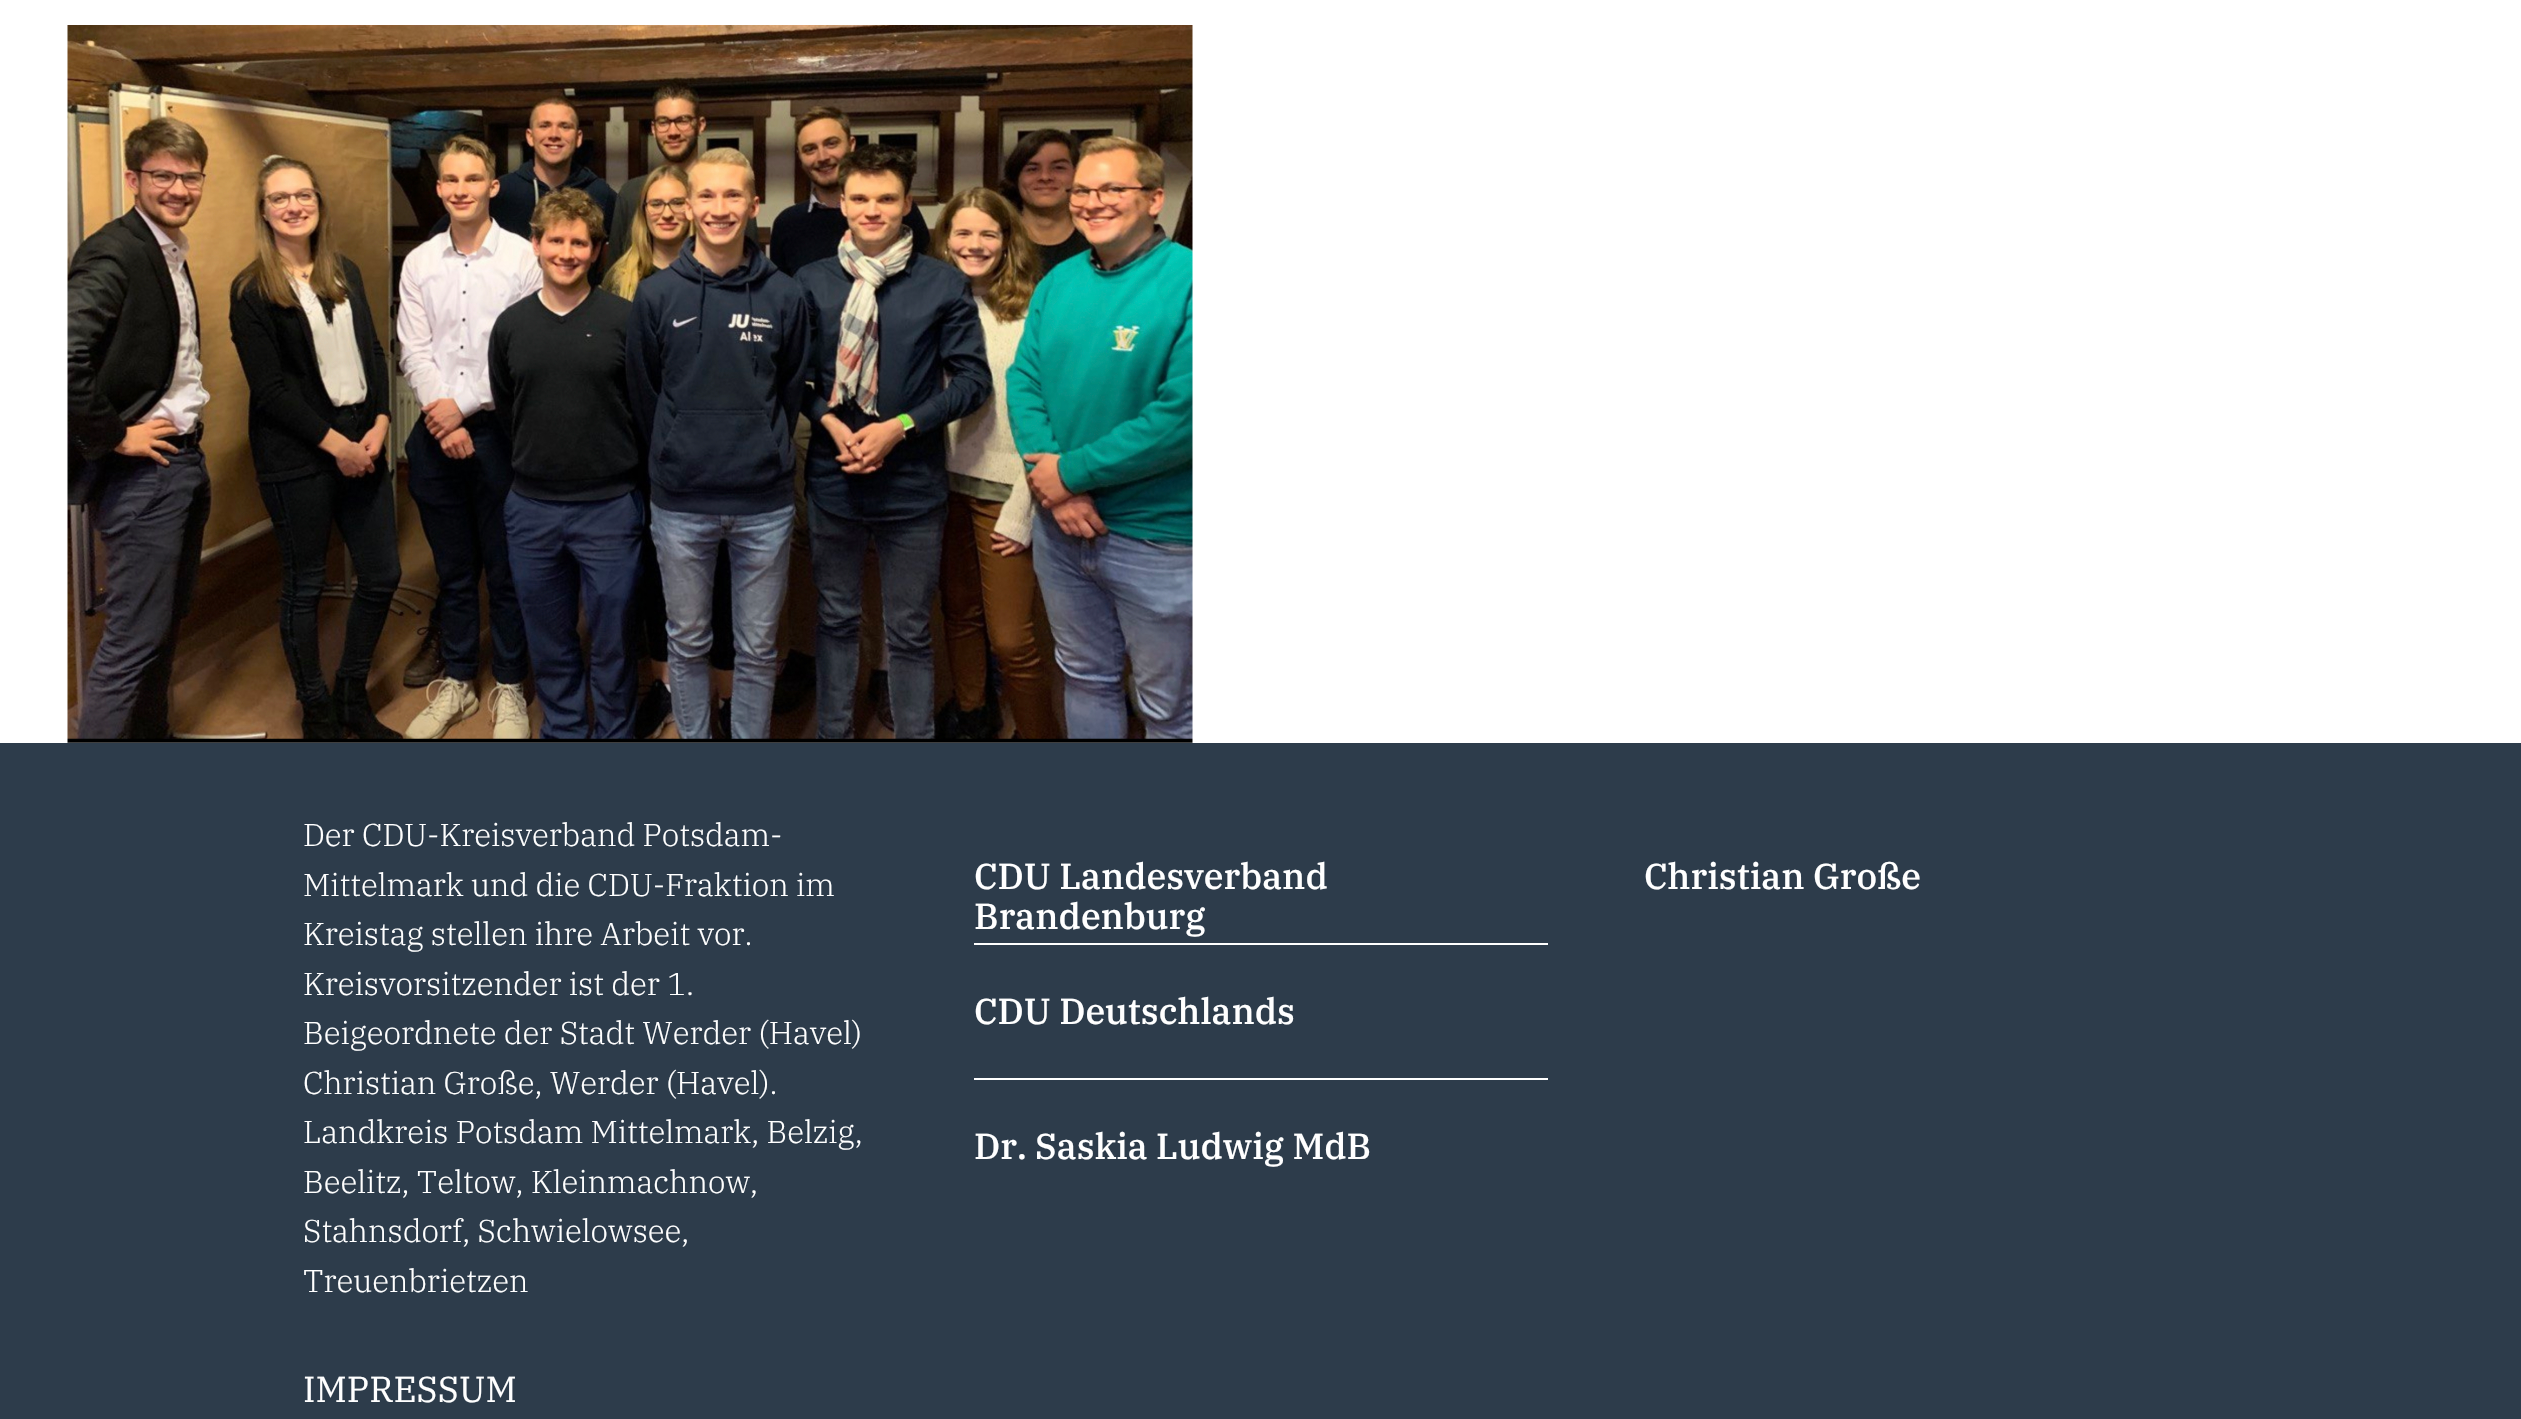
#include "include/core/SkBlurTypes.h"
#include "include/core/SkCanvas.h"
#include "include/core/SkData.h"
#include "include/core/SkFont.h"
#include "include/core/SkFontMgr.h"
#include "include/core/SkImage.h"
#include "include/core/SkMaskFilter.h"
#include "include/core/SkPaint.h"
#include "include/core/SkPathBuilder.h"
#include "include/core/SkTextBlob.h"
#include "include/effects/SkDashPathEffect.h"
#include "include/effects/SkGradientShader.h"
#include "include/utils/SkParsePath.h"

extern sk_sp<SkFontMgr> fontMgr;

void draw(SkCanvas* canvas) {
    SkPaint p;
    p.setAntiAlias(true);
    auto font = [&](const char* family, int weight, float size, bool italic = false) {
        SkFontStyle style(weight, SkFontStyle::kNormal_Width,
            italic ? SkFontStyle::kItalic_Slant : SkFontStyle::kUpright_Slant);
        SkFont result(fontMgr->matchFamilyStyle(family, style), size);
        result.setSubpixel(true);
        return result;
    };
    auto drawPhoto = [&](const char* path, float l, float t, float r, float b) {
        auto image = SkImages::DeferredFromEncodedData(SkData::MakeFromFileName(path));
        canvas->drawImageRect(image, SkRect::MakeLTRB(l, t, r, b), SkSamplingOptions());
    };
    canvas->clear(0xFFFFFFFF);
    drawPhoto("media/1.png", 67, 25, 1193, 743);
    p.setColor(0xFF2D3C4B);
    canvas->drawRect(SkRect::MakeLTRB(0, 743, 2521, 1419), p);
    auto font1 = font("IBM Plex Serif", 300, 31.5f);
    p.setColor(0xFFFFFFFF);
    {
        const struct { const char* s; float x, y; } items[] = {
            {"Der CDU-Kreisverband Potsdam-", 303, 846},
            {"Mittelmark und die CDU-Fraktion im", 303, 896},
            {"Kreistag stellen ihre Arbeit vor.", 303, 945},
            {"Kreisvorsitzender ist der 1.", 303, 995},
            {"Beigeordnete der Stadt Werder (Havel)", 303, 1044},
            {"Christian Große, Werder (Havel).", 303, 1094},
            {"Landkreis Potsdam Mittelmark, Belzig,", 303, 1143},
            {"Beelitz, Teltow, Kleinmachnow,", 303, 1193},
            {"Stahnsdorf, Schwielowsee,", 303, 1242},
            {"Treuenbrietzen", 303, 1292},
        };
        for (auto [s, x, y] : items) {
            canvas->drawString(s, x, y, font1, p);
        }
    }
    auto font2 = font("IBM Plex Serif", 400, 36);
    canvas->drawString("IMPRESSUM", 303, 1402, font2, p);
    canvas->drawRect(SkRect::MakeLTRB(974, 943, 1548, 945), p);
    auto font3 = font("IBM Plex Serif", 500, 36);
    canvas->drawString("CDU Landesverband", 974, 889, font3, p);
    canvas->drawString("Brandenburg", 974, 929, font3, p);
    canvas->drawRect(SkRect::MakeLTRB(974, 1078, 1548, 1080), p);
    {
        const struct { const char* s; float x, y; } items[] = {
            {"CDU Deutschlands", 974, 1024},
            {"Dr. Saskia Ludwig MdB", 974, 1159},
            {"Christian Große", 1644, 889},
        };
        for (auto [s, x, y] : items) {
            canvas->drawString(s, x, y, font3, p);
        }
    }
}
